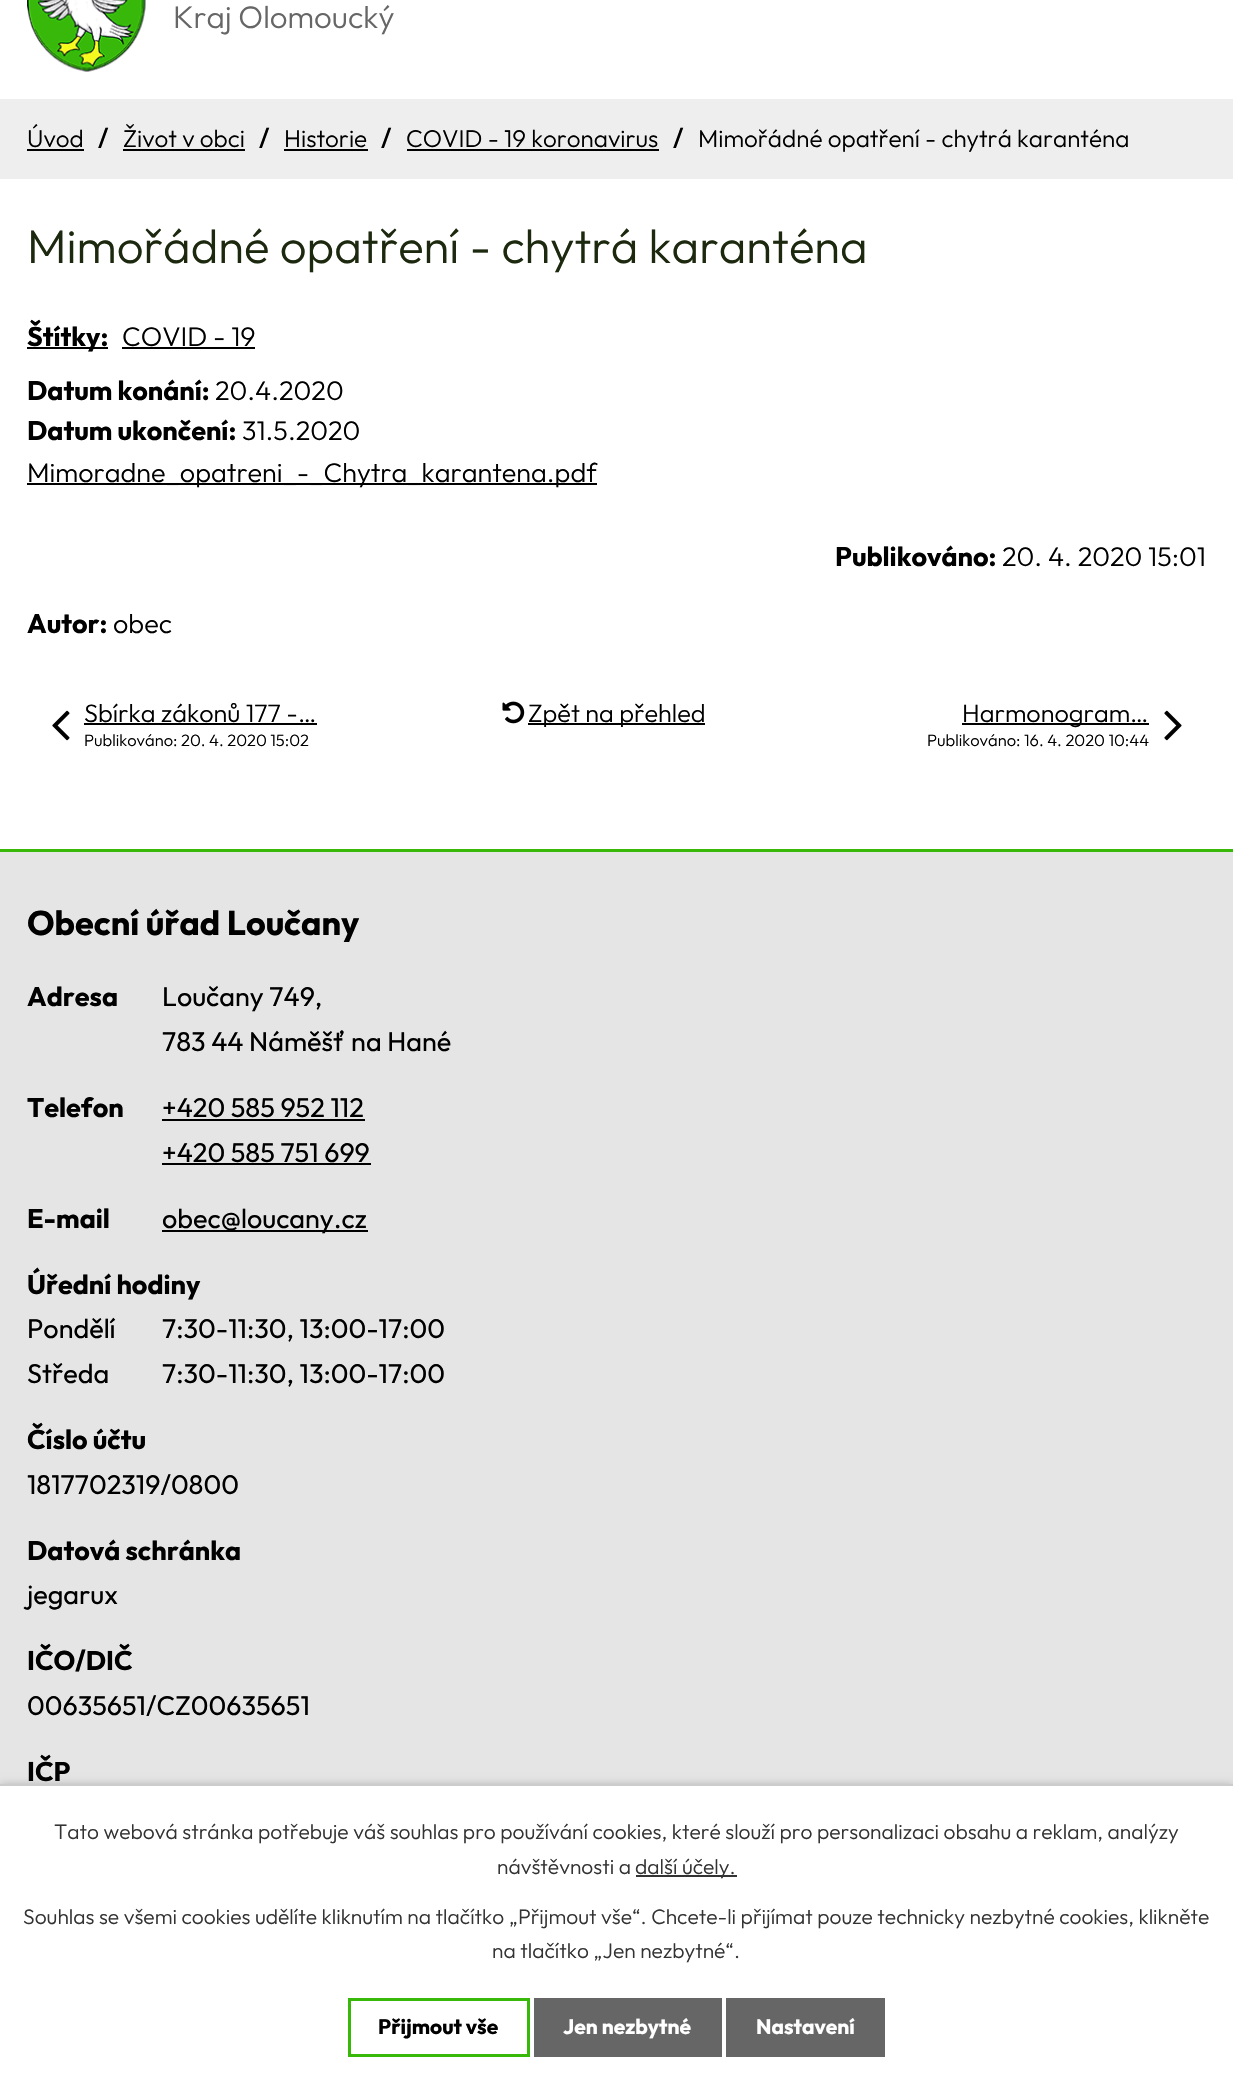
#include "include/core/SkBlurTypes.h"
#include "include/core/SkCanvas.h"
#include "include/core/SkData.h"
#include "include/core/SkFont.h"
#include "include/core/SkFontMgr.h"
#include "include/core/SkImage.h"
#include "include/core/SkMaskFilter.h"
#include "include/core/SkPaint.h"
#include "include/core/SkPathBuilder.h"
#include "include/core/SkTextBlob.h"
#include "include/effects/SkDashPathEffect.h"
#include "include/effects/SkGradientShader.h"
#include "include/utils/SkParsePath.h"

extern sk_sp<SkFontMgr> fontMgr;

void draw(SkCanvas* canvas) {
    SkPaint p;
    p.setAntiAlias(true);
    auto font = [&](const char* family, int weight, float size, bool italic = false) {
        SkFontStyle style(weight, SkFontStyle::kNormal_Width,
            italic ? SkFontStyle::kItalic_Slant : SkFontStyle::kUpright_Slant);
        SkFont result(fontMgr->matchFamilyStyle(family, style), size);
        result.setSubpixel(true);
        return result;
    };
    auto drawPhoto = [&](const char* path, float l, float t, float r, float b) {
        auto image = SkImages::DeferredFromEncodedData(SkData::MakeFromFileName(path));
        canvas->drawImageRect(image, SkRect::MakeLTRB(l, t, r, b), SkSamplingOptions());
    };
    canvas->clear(0xFFFFFFFF);
    drawPhoto("media/1.png", 27, 0, 146, 72);
    auto font1 = font("Outfit", 300, 31.25f);
    p.setColor(0xFF666666);
    canvas->drawString("Kraj Olomoucký", 173, 28, font1, p);
    p.setColor(0xFFEEEEEE);
    canvas->drawRect(SkRect::MakeLTRB(0, 99, 1233, 179), p);
    auto font2 = font("Outfit", 300, 24.25f);
    p.setColor(0xFF000000);
    canvas->drawString("Úvod", 27, 147, font2, p);
    canvas->drawRect(SkRect::MakeLTRB(27, 149, 84, 151), p);
    auto font3 = font("Outfit", 500, 26);
    canvas->drawString("/", 98, 147, font3, p);
    canvas->drawString("Život v obci", 123, 147, font2, p);
    canvas->drawRect(SkRect::MakeLTRB(123, 149, 245, 151), p);
    canvas->drawString("/", 259, 147, font3, p);
    canvas->drawString("Historie", 284, 147, font2, p);
    canvas->drawRect(SkRect::MakeLTRB(284, 149, 368, 151), p);
    canvas->drawString("/", 381, 147, font3, p);
    canvas->drawString("COVID - 19 koronavirus", 406, 147, font2, p);
    canvas->drawRect(SkRect::MakeLTRB(407, 149, 659, 151), p);
    canvas->drawString("/", 673, 147, font3, p);
    canvas->drawString("Mimořádné opatření - chytrá karanténa", 698, 147, font2, p);
    auto font4 = font("Outfit", 300, 47.25f);
    p.setColor(0xFF1D290F);
    canvas->drawString("Mimořádné opatření - chytrá karanténa", 27, 263, font4, p);
    p.setColor(0xFF000000);
    canvas->drawRect(SkRect::MakeLTRB(27, 347, 108, 349), p);
    auto font5 = font("Outfit", 700, 27);
    canvas->drawString("Štítky:", 27, 346, font5, p);
    auto font6 = font("Outfit", 300, 27);
    canvas->drawString("COVID - 19", 122, 346, font6, p);
    canvas->drawRect(SkRect::MakeLTRB(122, 347, 255, 349), p);
    canvas->drawString("Datum konání:", 27, 400, font5, p);
    canvas->drawString("20.4.2020", 215, 400, font6, p);
    canvas->drawString("Datum ukončení:", 27, 440, font5, p);
    canvas->drawString("31.5.2020", 242, 440, font6, p);
    canvas->drawRect(SkRect::MakeLTRB(27, 483, 597, 485), p);
    canvas->drawString("Mimoradne_opatreni_-_Chytra_karantena.pdf", 27, 482, font6, p);
    canvas->drawString("Publikováno:", 835, 566, font5, p);
    canvas->drawString("20. 4. 2020 15:01", 1002, 566, font6, p);
    canvas->drawString("Autor:", 27, 633, font5, p);
    canvas->drawString("obec", 113, 633, font6, p);
    drawPhoto("media/2.png", 52, 710, 70, 741);
    auto font7 = font("Outfit", 300, 25.25f);
    canvas->drawString("Sbírka zákonů 177 -…", 84, 722, font7, p);
    canvas->drawRect(SkRect::MakeLTRB(84, 723, 317, 725), p);
    auto font8 = font("Outfit", 300, 16.5f);
    canvas->drawString("Publikováno: 20. 4. 2020 15:02", 84, 746, font8, p);
    drawPhoto("media/3.png", 502, 701, 525, 724);
    canvas->drawRect(SkRect::MakeLTRB(528, 723, 705, 725), p);
    canvas->drawString("Zpět na přehled", 528, 722, font7, p);
    canvas->drawRect(SkRect::MakeLTRB(962, 723, 1149, 725), p);
    canvas->drawString("Harmonogram…", 962, 722, font7, p);
    canvas->drawString("Publikováno: 16. 4. 2020 10:44", 927, 746, font8, p);
    drawPhoto("media/4.png", 1164, 710, 1182, 741);
    p.setColor(0xFFE5E5E5);
    canvas->drawRect(SkRect::MakeLTRB(0, 852, 1233, 1784), p);
    p.setColor(0xFF38B909);
    canvas->drawRect(SkRect::MakeLTRB(0, 849, 1233, 852), p);
    auto font9 = font("Outfit", 700, 34.25f);
    p.setColor(0xFF000000);
    canvas->drawString("Obecní úřad Loučany", 27, 935, font9, p);
    canvas->drawString("Adresa", 27, 1006, font5, p);
    auto font10 = font("Outfit", 400, 27);
    canvas->drawString("Loučany 749,", 162, 1006, font10, p);
    canvas->drawString("783 44 Náměšť na Hané", 162, 1051, font10, p);
    canvas->drawString("Telefon", 27, 1117, font5, p);
    canvas->drawString("+420 585 952 112", 162, 1117, font10, p);
    canvas->drawRect(SkRect::MakeLTRB(162, 1119, 365, 1121), p);
    canvas->drawString("+420 585 751 699", 162, 1162, font10, p);
    canvas->drawRect(SkRect::MakeLTRB(162, 1163, 371, 1165), p);
    canvas->drawString("E-mail", 27, 1228, font5, p);
    canvas->drawRect(SkRect::MakeLTRB(162, 1230, 368, 1232), p);
    canvas->drawString("obec@loucany.cz", 162, 1228, font10, p);
    canvas->drawString("Úřední hodiny", 27, 1294, font5, p);
    {
        const struct { const char* s; float x, y; } items[] = {
            {"Pondělí", 27, 1338},
            {"7:30-11:30, 13:00-17:00", 162, 1338},
            {"Středa", 27, 1383},
            {"7:30-11:30, 13:00-17:00", 162, 1383},
        };
        for (auto [s, x, y] : items) {
            canvas->drawString(s, x, y, font10, p);
        }
    }
    canvas->drawString("Číslo účtu", 27, 1449, font5, p);
    canvas->drawString("1817702319/0800", 27, 1494, font10, p);
    canvas->drawString("Datová schránka", 27, 1560, font5, p);
    canvas->drawString("jegarux", 27, 1604, font10, p);
    canvas->drawString("IČO/DIČ", 27, 1670, font5, p);
    canvas->drawString("00635651/CZ00635651", 27, 1715, font10, p);
    canvas->drawString("IČP", 27, 1781, font5, p);
    p.setColor(0x33000000);
    p.setMaskFilter(SkMaskFilter::MakeBlur(kNormal_SkBlurStyle, 4));
    canvas->drawRect(SkRect::MakeLTRB(0, 1784, 1233, 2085), p);
    p.setMaskFilter(nullptr);
    p.setColor(0xFFFFFFFF);
    canvas->drawRect(SkRect::MakeLTRB(0, 1786, 1233, 2084), p);
    p.setColor(0xFFCCCCCC);
    canvas->drawRect(SkRect::MakeLTRB(0, 1784, 1233, 1786), p);
    auto font11 = font("Outfit", 300, 21);
    p.setColor(0xFF333333);
    canvas->drawString("Tato webová stránka potřebuje váš souhlas pro používání cookies, které slouží pro personalizaci obsahu a reklam, analýzy", 54, 1839, font11, p);
    canvas->drawString("návštěvnosti a", 497, 1874, font11, p);
    canvas->drawRect(SkRect::MakeLTRB(636, 1875, 737, 1877), p);
    {
        const struct { const char* s; float x, y; } items[] = {
            {"další účely.", 635, 1874},
            {"Souhlas se všemi cookies udělíte kliknutím na tlačítko „Přijmout vše“. Chcete-li přijímat pouze technicky nezbytné cookies, klikněte", 23, 1924},
            {"na tlačítko „Jen nezbytné“.", 492, 1958},
        };
        for (auto [s, x, y] : items) {
            canvas->drawString(s, x, y, font11, p);
        }
    }
    p.setStyle(SkPaint::kStroke_Style);
    p.setStrokeWidth(3);
    p.setColor(0xFF38B909);
    canvas->drawRect(SkRect::MakeLTRB(349.5f, 1999.5f, 528.5f, 2055.5f), p);
    auto font12 = font("Outfit", 700, 21);
    p.setStyle(SkPaint::kFill_Style);
    p.setColor(0xFF000000);
    canvas->drawString("Přijmout vše", 378, 2034, font12, p);
    p.setColor(0xFF666666);
    canvas->drawRect(SkRect::MakeLTRB(534, 1998, 722, 2057), p);
    p.setColor(0xFFFFFFFF);
    canvas->drawString("Jen nezbytné", 563, 2034, font12, p);
    p.setColor(0xFF666666);
    canvas->drawRect(SkRect::MakeLTRB(726, 1998, 885, 2057), p);
    p.setColor(0xFFFFFFFF);
    canvas->drawString("Nastavení", 756, 2034, font12, p);
}
